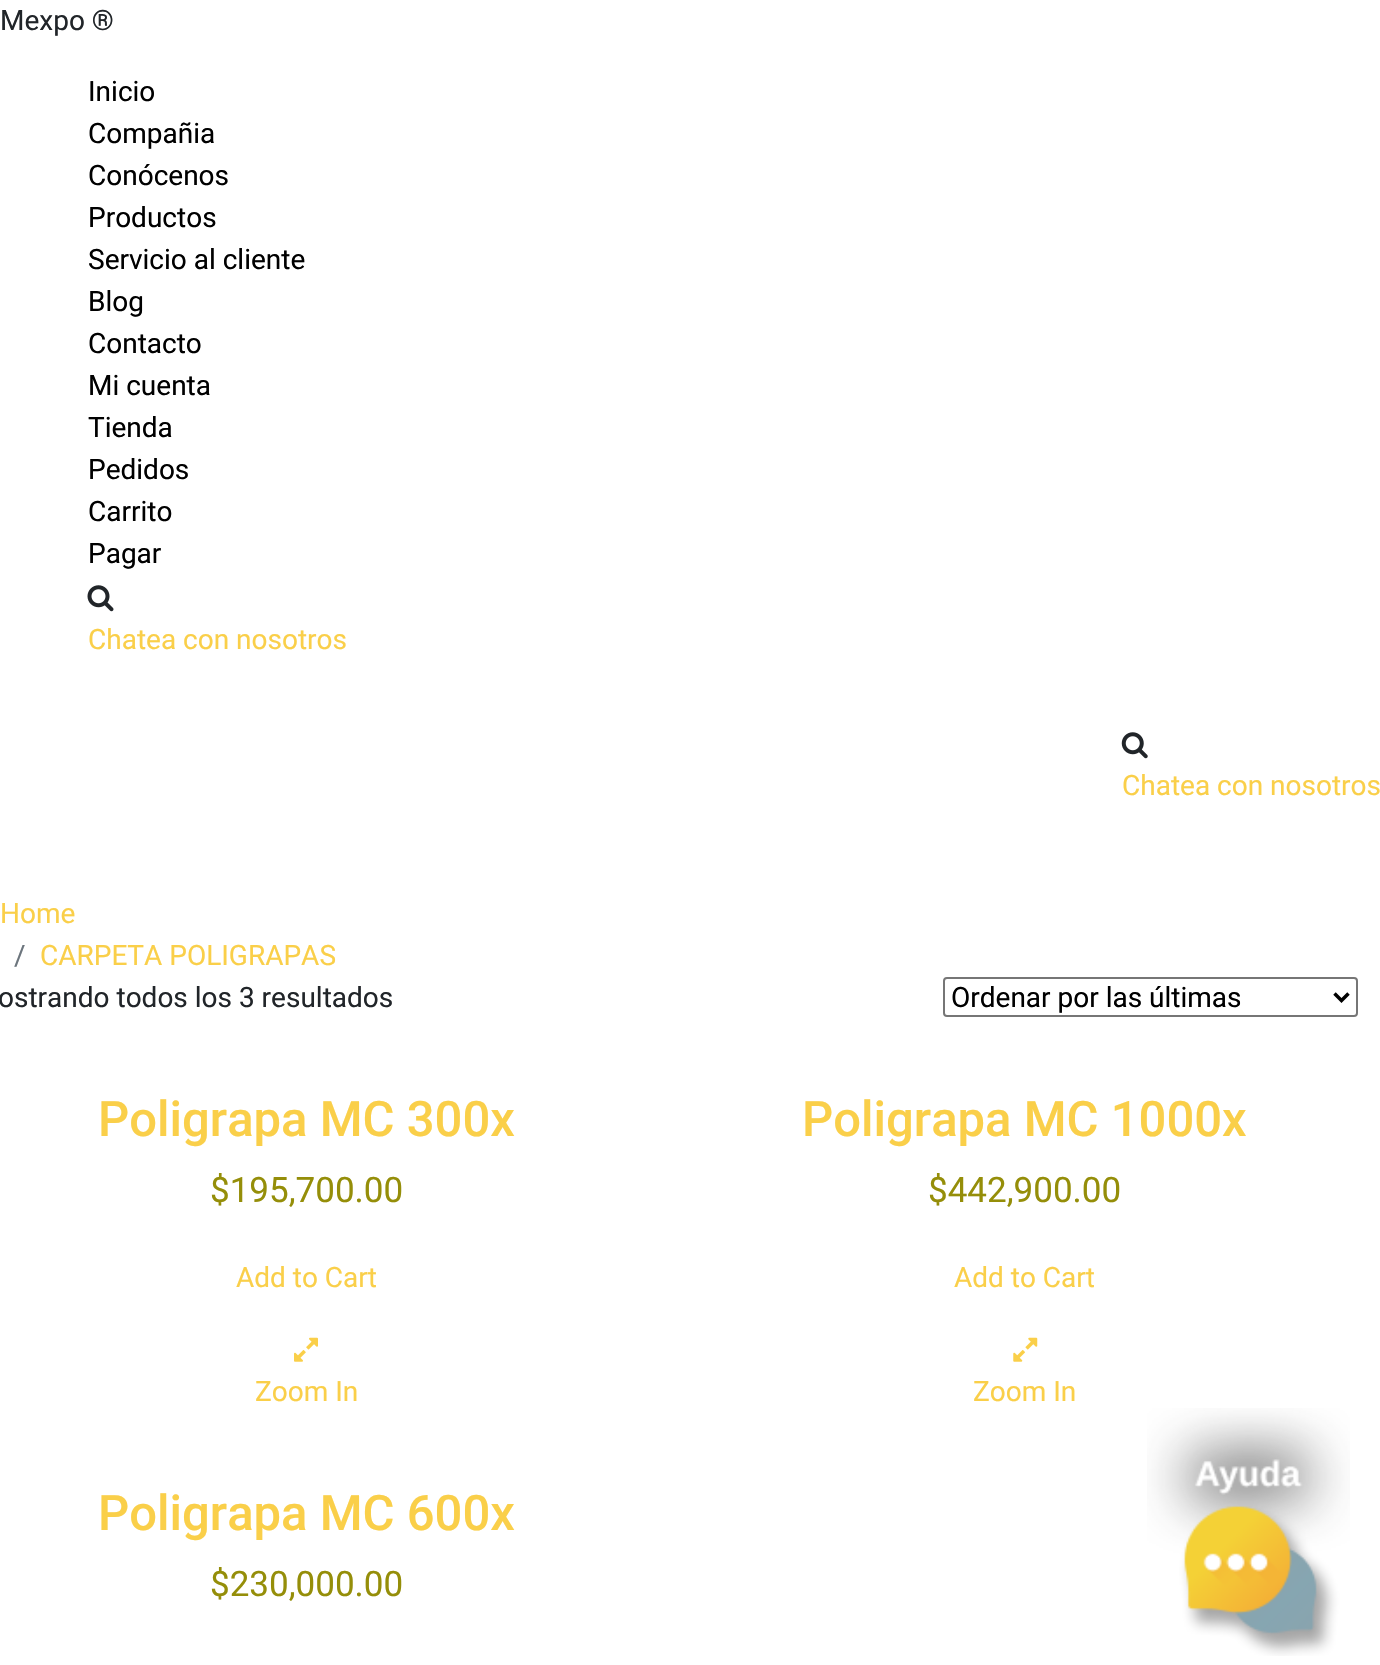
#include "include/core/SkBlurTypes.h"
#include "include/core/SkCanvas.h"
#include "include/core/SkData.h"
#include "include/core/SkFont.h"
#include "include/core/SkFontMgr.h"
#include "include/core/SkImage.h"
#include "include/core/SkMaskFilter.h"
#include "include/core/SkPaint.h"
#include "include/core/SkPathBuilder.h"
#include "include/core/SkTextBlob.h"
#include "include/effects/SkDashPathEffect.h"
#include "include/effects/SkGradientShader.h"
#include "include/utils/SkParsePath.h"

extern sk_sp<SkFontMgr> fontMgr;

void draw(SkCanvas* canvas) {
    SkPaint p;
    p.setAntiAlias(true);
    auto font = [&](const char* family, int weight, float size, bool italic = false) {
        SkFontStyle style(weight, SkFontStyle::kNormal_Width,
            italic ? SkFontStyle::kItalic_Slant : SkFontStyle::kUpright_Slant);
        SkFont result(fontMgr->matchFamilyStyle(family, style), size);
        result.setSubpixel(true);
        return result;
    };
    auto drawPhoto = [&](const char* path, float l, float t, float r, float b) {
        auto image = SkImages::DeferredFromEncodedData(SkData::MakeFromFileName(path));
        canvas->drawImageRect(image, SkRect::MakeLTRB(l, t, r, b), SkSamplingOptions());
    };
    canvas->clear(0xFFFFFFFF);
    auto font1 = font("Roboto", 400, 28);
    p.setColor(0xFF212529);
    canvas->drawString("Mexpo ®", 0, 30, font1, p);
    p.setColor(0xFF000000);
    {
        const struct { const char* s; float x, y; } items[] = {
            {"Inicio", 88, 101},
            {"Compañia", 88, 143},
            {"Conócenos", 88, 185},
            {"Productos", 88, 227},
            {"Servicio al cliente", 88, 269},
            {"Blog", 88, 311},
            {"Contacto", 88, 353},
            {"Mi cuenta", 88, 395},
            {"Tienda", 88, 437},
            {"Pedidos", 88, 479},
            {"Carrito", 88, 521},
            {"Pagar", 88, 563},
        };
        for (auto [s, x, y] : items) {
            canvas->drawString(s, x, y, font1, p);
        }
    }
    drawPhoto("media/1.png", 87, 585, 114, 612);
    p.setColor(0xFFFACF49);
    canvas->drawString("Chatea con nosotros", 88, 649, font1, p);
    drawPhoto("media/2.png", 1121, 732, 1148, 759);
    canvas->drawString("Chatea con nosotros", 1122, 795, font1, p);
    canvas->drawString("Home", 0, 923, font1, p);
    p.setColor(0xFF6C757D);
    canvas->drawString("/", 14, 965, font1, p);
    p.setColor(0xFFFACF49);
    canvas->drawString("CARPETA POLIGRAPAS", 40, 965, font1, p);
    p.setColor(0xFF212529);
    canvas->drawString("ostrando todos los 3 resultados", -2, 1007, font1, p);
    p.setStyle(SkPaint::kStroke_Style);
    p.setStrokeWidth(2);
    p.setColor(0xFF767676);
    canvas->drawRoundRect(SkRect::MakeLTRB(944, 978, 1357, 1016), 3, 3, p);
    p.setStrokeWidth(3.5f);
    p.setColor(0xFF000000);
    canvas->drawPath(SkPathBuilder().moveTo(1334.5f, 993.5f).lineTo(1341.5f, 1000.5f).lineTo(1348.5f, 993.5f).detach(), p);
    p.setStyle(SkPaint::kFill_Style);
    canvas->drawString("Ordenar por las últimas", 951, 1007, font1, p);
    auto font2 = font("Roboto", 500, 49);
    p.setColor(0xFFFACF49);
    canvas->drawString("Poligrapa MC 300x", 98, 1136, font2, p);
    auto font3 = font("Roboto", 400, 35);
    p.setColor(0xFF958E09);
    canvas->drawString("$195,700.00", 210, 1202, font3, p);
    p.setColor(0xFFFACF49);
    canvas->drawString("Add to Cart", 236, 1287, font1, p);
    drawPhoto("media/3.png", 294, 1337, 318, 1362);
    canvas->drawString("Zoom In", 255, 1401, font1, p);
    canvas->drawString("Poligrapa MC 1000x", 802, 1136, font2, p);
    p.setColor(0xFF958E09);
    canvas->drawString("$442,900.00", 928, 1202, font3, p);
    p.setColor(0xFFFACF49);
    canvas->drawString("Add to Cart", 954, 1287, font1, p);
    drawPhoto("media/4.png", 1013, 1337, 1038, 1362);
    canvas->drawString("Zoom In", 973, 1401, font1, p);
    canvas->drawString("Poligrapa MC 600x", 98, 1530, font2, p);
    p.setColor(0xFF958E09);
    canvas->drawString("$230,000.00", 210, 1596, font3, p);
    drawPhoto("media/5.png", 1147, 1408, 1350, 1656);
}
